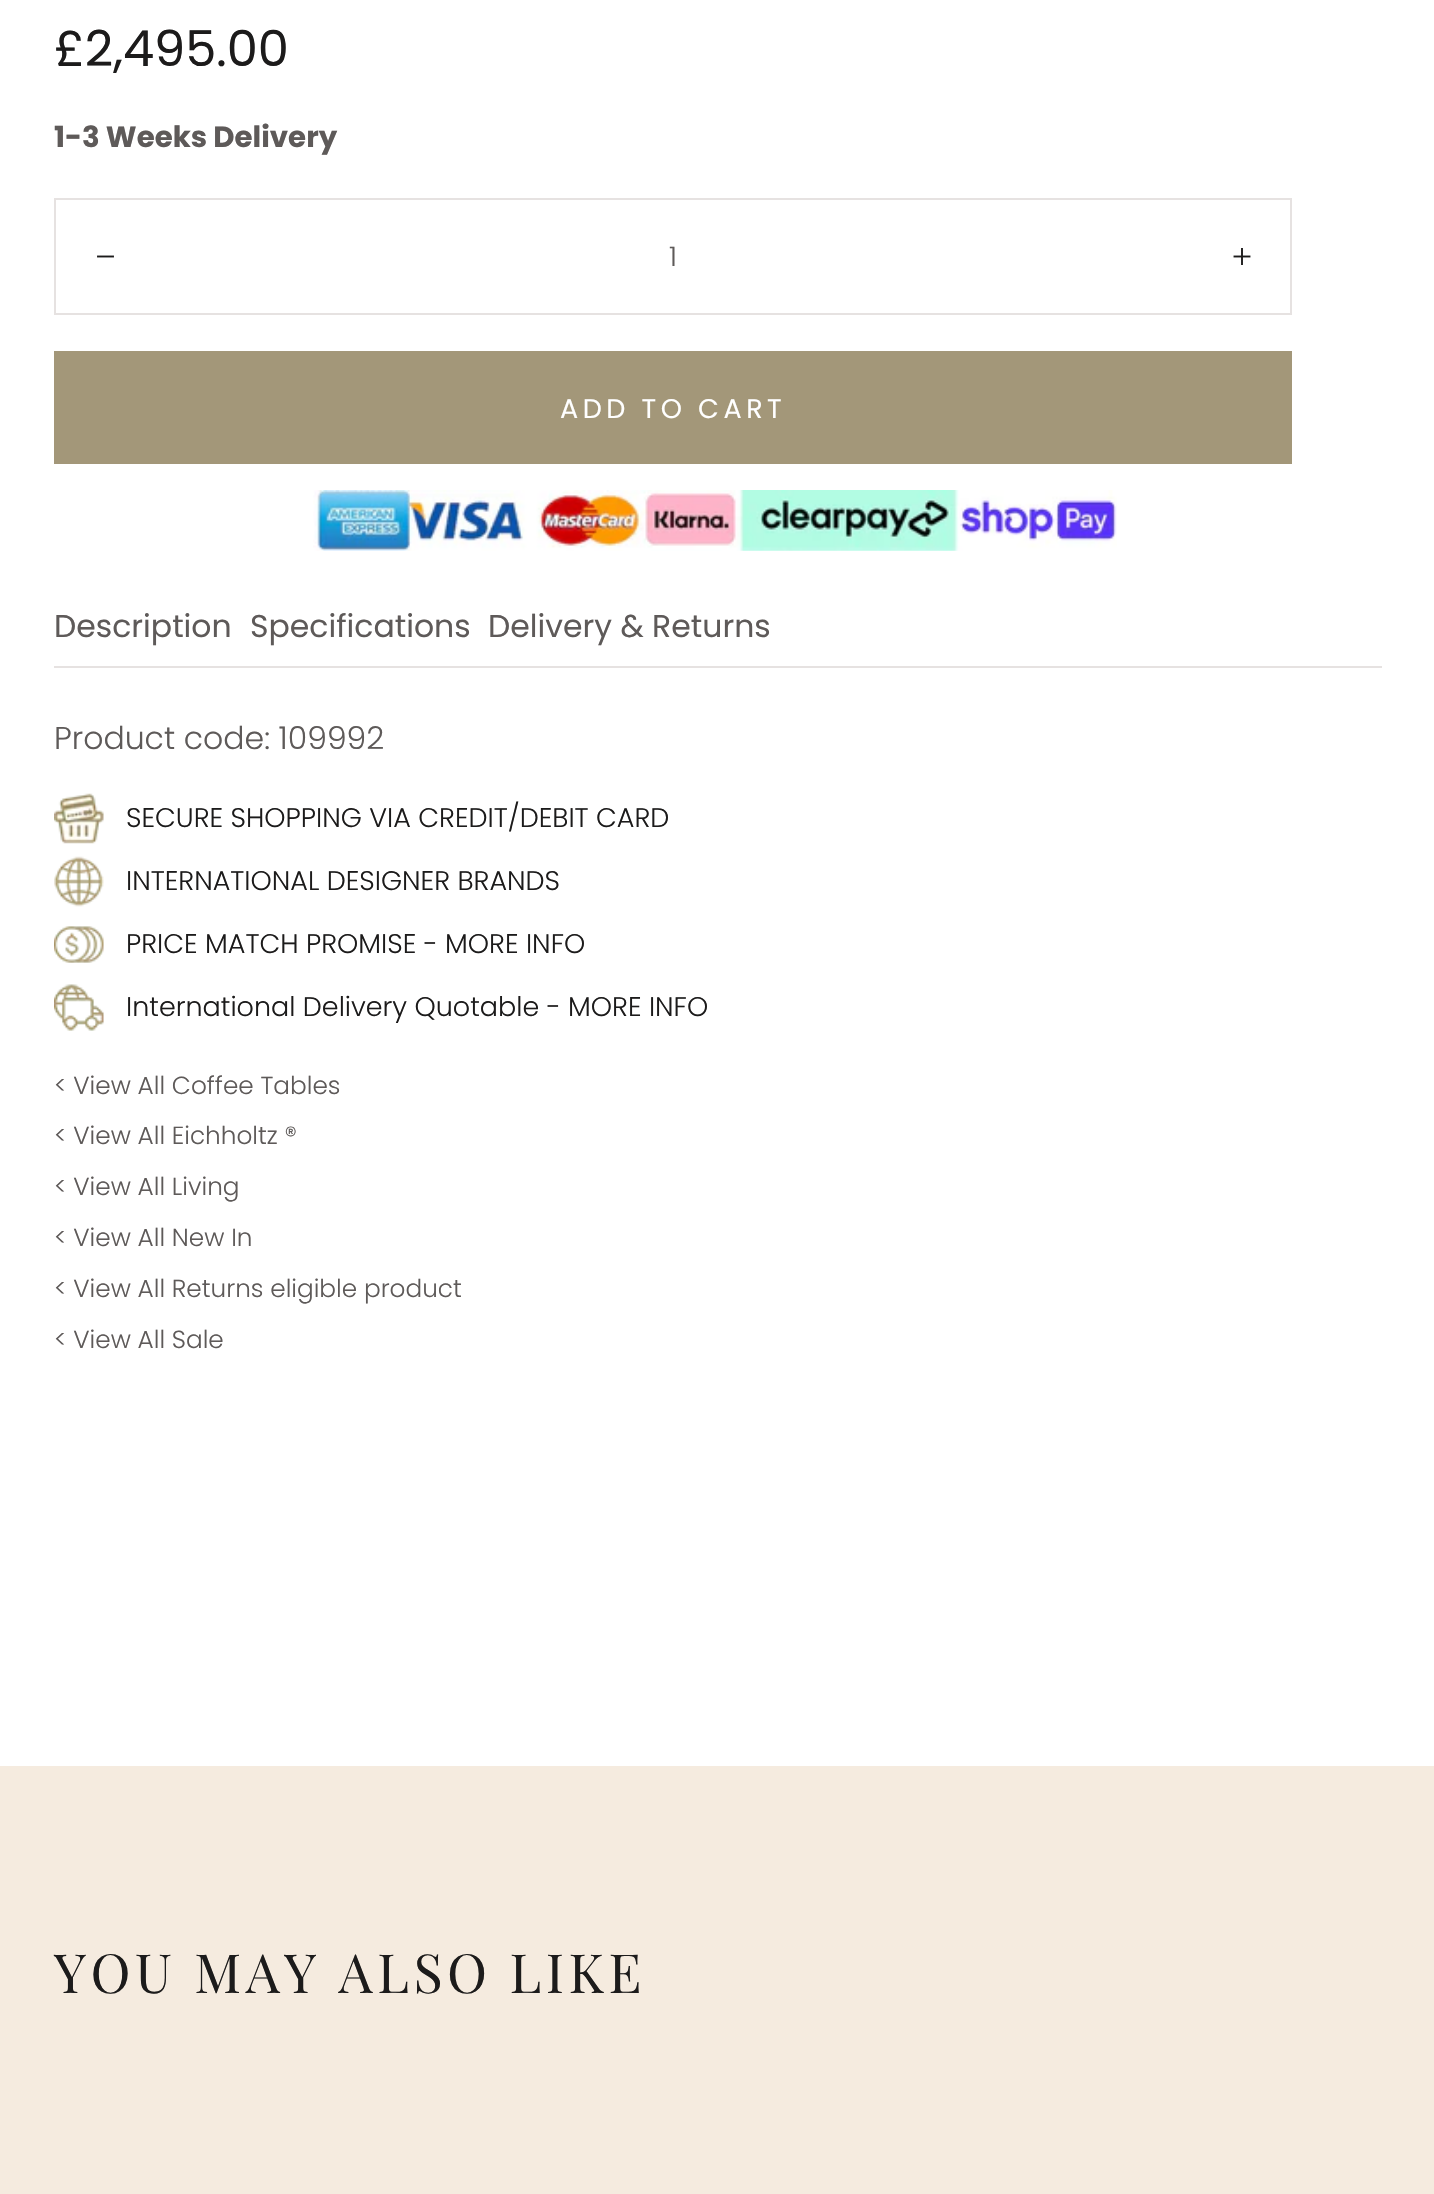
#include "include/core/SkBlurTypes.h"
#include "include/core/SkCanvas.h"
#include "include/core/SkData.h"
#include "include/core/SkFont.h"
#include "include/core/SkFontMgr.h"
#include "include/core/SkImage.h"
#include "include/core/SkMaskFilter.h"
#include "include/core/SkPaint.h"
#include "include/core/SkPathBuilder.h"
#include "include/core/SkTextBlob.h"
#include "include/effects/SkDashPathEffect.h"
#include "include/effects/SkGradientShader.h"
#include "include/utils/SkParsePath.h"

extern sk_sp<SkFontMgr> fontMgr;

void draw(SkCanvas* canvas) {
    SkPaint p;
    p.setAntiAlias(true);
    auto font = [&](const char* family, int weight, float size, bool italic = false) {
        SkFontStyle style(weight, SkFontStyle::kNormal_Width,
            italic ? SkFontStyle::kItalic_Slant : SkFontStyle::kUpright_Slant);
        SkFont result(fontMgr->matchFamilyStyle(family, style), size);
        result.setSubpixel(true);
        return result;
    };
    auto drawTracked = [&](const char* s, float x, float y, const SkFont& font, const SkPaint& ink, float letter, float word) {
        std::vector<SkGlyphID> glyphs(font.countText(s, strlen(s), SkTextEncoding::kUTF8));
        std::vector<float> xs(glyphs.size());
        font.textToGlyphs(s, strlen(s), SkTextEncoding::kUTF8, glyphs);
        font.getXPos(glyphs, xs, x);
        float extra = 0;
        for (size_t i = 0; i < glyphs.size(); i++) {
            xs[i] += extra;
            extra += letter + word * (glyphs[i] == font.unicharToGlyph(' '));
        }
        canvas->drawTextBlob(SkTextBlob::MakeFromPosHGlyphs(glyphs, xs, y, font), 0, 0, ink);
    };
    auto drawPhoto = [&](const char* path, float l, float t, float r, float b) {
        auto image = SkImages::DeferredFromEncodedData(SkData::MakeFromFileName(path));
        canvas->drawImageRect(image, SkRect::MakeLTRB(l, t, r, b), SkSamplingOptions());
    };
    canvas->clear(0xFFFFFFFF);
    auto font1 = font("Poppins", 400, 49.5f);
    p.setColor(0xFF1C1B1B);
    canvas->drawString("£2,495.00", 54, 66, font1, p);
    auto font2 = font("Poppins", 700, 29.25f);
    p.setColor(0xFF5E5A59);
    canvas->drawString("1-3 Weeks Delivery", 54, 147, font2, p);
    p.setStyle(SkPaint::kStroke_Style);
    p.setStrokeWidth(2);
    p.setColor(0xFFE6E2E1);
    canvas->drawRect(SkRect::MakeLTRB(55, 199, 1291, 314), p);
    p.setStrokeWidth(1.9f);
    p.setStrokeCap(SkPaint::kSquare_Cap);
    p.setColor(0xFF1C1B1B);
    canvas->drawPath(SkPathBuilder().moveTo(98, 256.5f).lineTo(113, 256.5f).detach(), p);
    auto font3 = font("Poppins", 300, 27);
    p.setStyle(SkPaint::kFill_Style);
    p.setColor(0xFF5E5A59);
    canvas->drawString("1", 669, 266, font3, p);
    p.setColor(0xFF272626);
    canvas->drawRect(SkRect::MakeLTRB(1241, 248, 1243, 265), p);
    p.setStyle(SkPaint::kStroke_Style);
    p.setColor(0xFF1C1B1B);
    canvas->drawPath(SkPathBuilder().moveTo(1234.5f, 256.5f).lineTo(1249.5f, 256.5f).detach(), p);
    p.setStyle(SkPaint::kFill_Style);
    p.setColor(0xFFA39779);
    canvas->drawRect(SkRect::MakeLTRB(54, 351, 1292, 464), p);
    auto font4 = font("Poppins", 400, 27);
    p.setColor(0xFFFFFFFF);
    drawTracked("ADD TO CART", 560, 418, font4, p, 4.5f, 0);
    drawPhoto("media/1.png", 313, 490, 1117, 551);
    p.setColor(0xFFE6E2E1);
    canvas->drawRect(SkRect::MakeLTRB(54, 666, 1382, 668), p);
    auto font5 = font("Poppins", 400, 31.5f);
    p.setColor(0xFF5E5A59);
    {
        const struct { const char* s; float x, y; } items[] = {
            {"Description", 54, 637},
            {"Specifications", 250, 637},
            {"Delivery & Returns", 488, 637},
        };
        for (auto [s, x, y] : items) {
            canvas->drawString(s, x, y, font5, p);
        }
    }
    auto font6 = font("Poppins", 300, 31.5f);
    canvas->drawString("Product code: 109992", 54, 749, font6, p);
    drawPhoto("media/2.png", 54, 793, 104, 844);
    p.setColor(0xFF1C1B1B);
    canvas->drawString("SECURE SHOPPING VIA CREDIT/DEBIT CARD", 126, 827, font3, p);
    drawPhoto("media/3.png", 54, 856, 104, 907);
    canvas->drawString("INTERNATIONAL DESIGNER BRANDS", 126, 890, font3, p);
    drawPhoto("media/4.png", 54, 926, 104, 963);
    canvas->drawString("PRICE MATCH PROMISE - MORE INFO", 126, 953, font3, p);
    drawPhoto("media/5.png", 54, 984, 104, 1031);
    canvas->drawString("International Delivery Quotable - MORE INFO", 126, 1016, font3, p);
    auto font7 = font("Poppins", 300, 24.75f);
    p.setColor(0xFF5E5A59);
    {
        const struct { const char* s; float x, y; } items[] = {
            {"< View All Coffee Tables", 54, 1094},
            {"< View All Eichholtz ®", 54, 1144},
            {"< View All Living", 54, 1195},
            {"< View All New In", 54, 1246},
            {"< View All Returns eligible product", 54, 1297},
            {"< View All Sale", 54, 1348},
        };
        for (auto [s, x, y] : items) {
            canvas->drawString(s, x, y, font7, p);
        }
    }
    p.setColor(0xFFF5EBDF);
    canvas->drawRect(SkRect::MakeLTRB(0, 1766, 1434, 2194), p);
    auto font8 = font("Playfair Display", 400, 54);
    p.setColor(0xFF1C1B1B);
    drawTracked("YOU MAY ALSO LIKE", 54, 1993, font8, p, 4.5f, 0);
}
